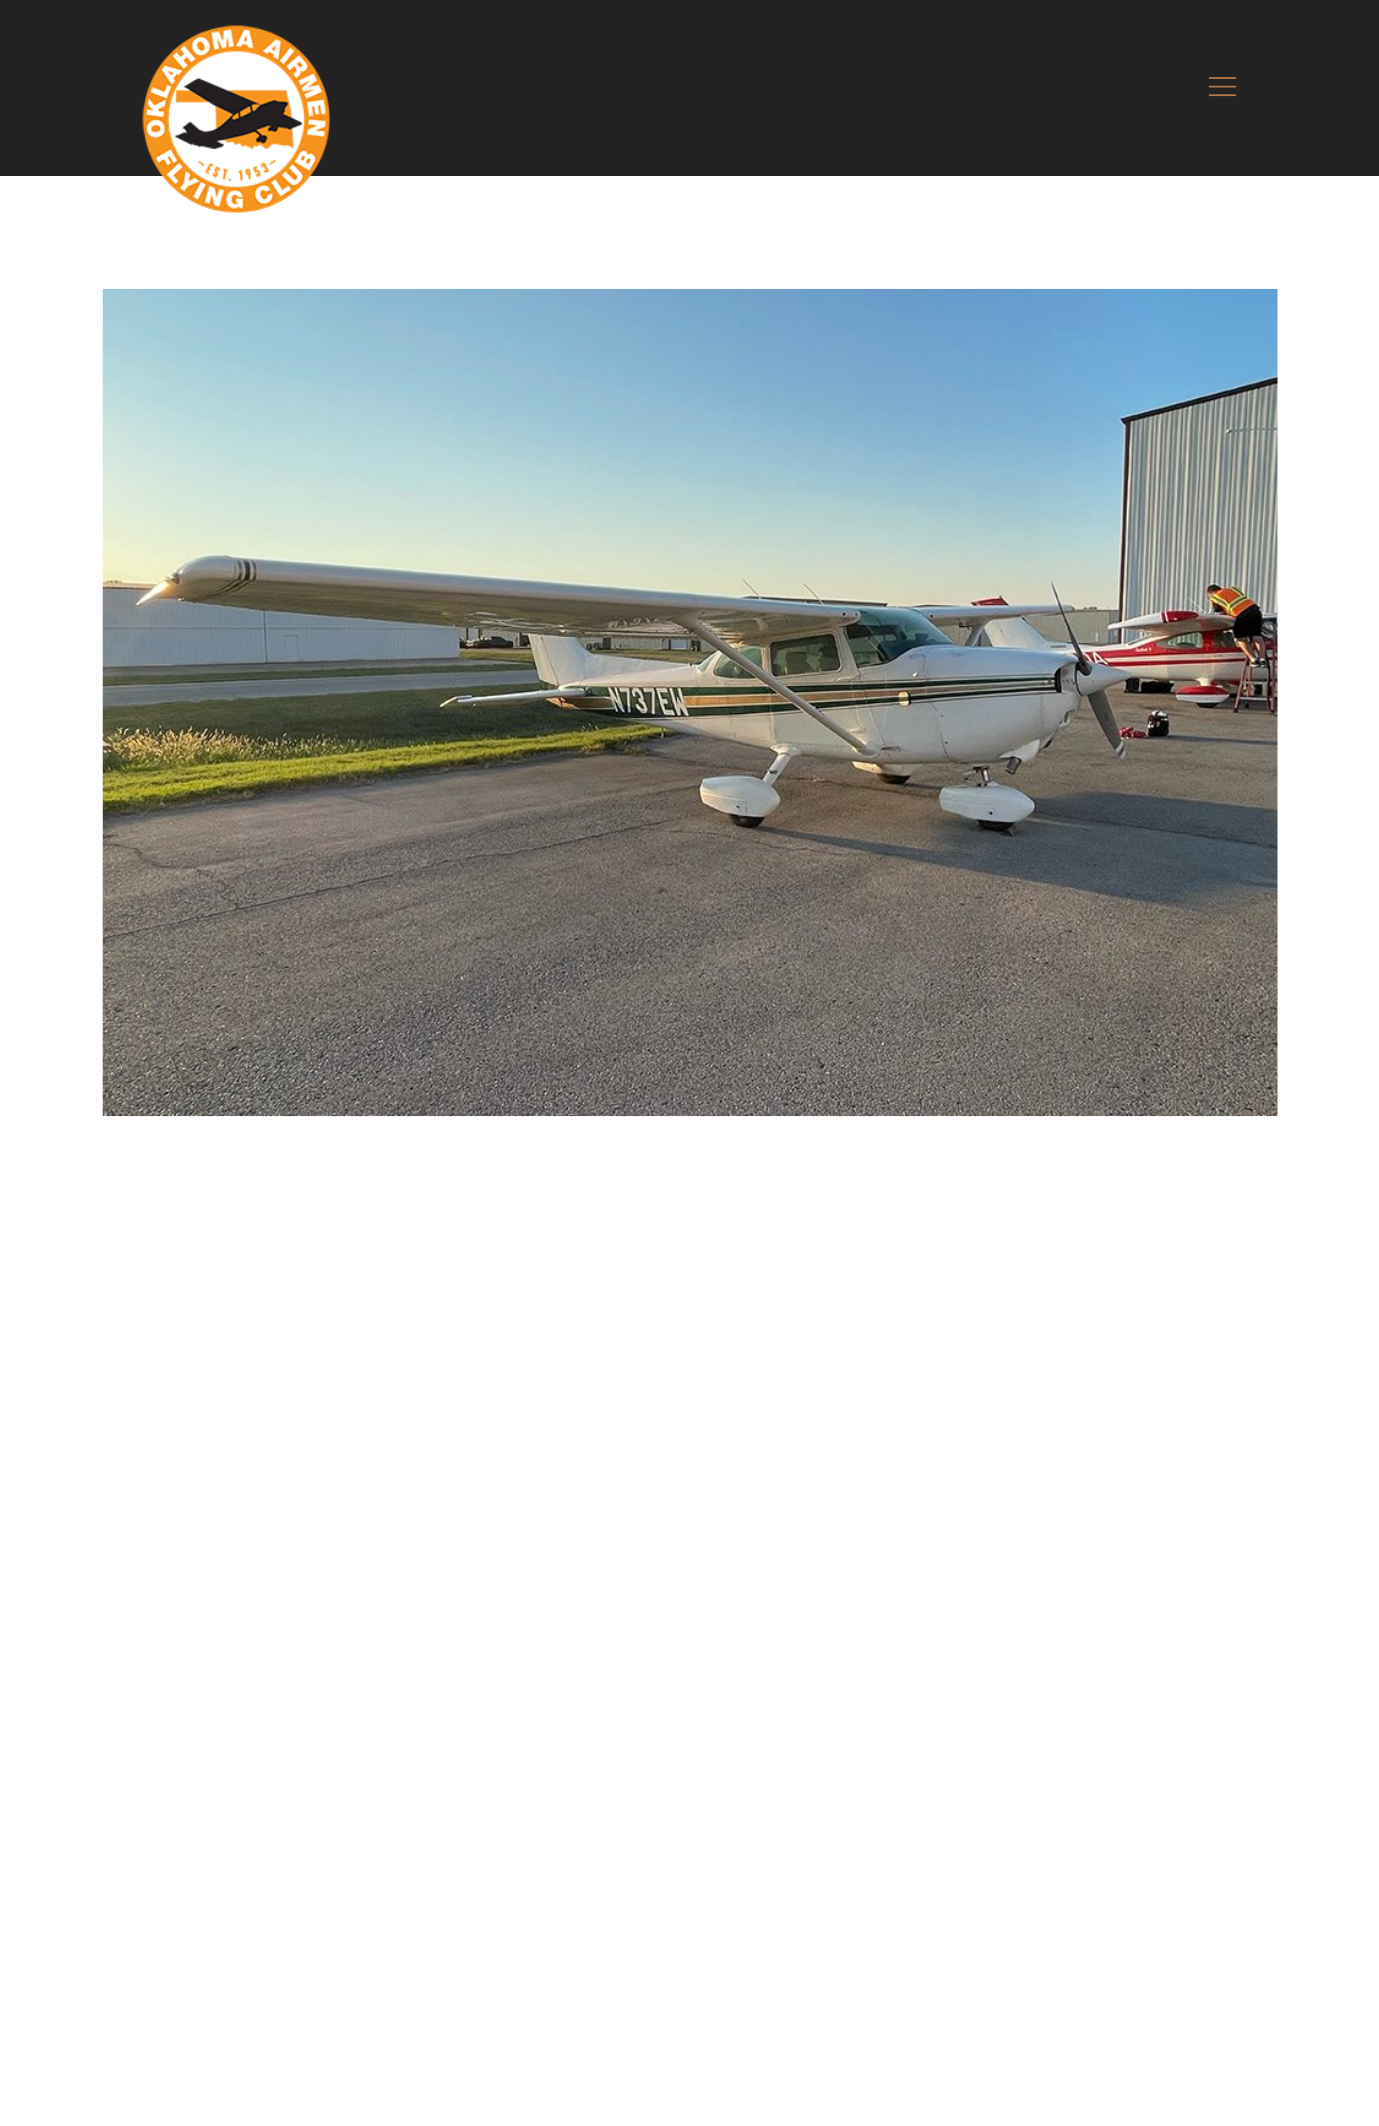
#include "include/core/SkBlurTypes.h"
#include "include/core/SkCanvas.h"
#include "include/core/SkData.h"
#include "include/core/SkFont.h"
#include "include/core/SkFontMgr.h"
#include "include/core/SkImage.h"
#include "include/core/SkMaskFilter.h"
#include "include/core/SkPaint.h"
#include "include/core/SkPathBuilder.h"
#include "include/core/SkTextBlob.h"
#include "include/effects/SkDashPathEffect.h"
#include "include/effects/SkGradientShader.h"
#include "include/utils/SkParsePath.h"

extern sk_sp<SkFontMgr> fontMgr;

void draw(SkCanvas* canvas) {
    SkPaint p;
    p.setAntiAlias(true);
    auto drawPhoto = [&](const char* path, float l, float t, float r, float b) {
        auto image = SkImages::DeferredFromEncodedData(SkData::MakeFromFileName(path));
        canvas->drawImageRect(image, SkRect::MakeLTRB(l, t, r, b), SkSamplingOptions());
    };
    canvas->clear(0xFFFFFFFF);
    p.setColor(0xFF222222);
    canvas->drawRect(SkRect::MakeLTRB(0, 0, 1379, 176), p);
    drawPhoto("media/1.png", 142, 25, 330, 213);
    drawPhoto("media/2.png", 1208, 77, 1237, 97);
    drawPhoto("media/3.png", 102, 288, 1278, 1117);
}
